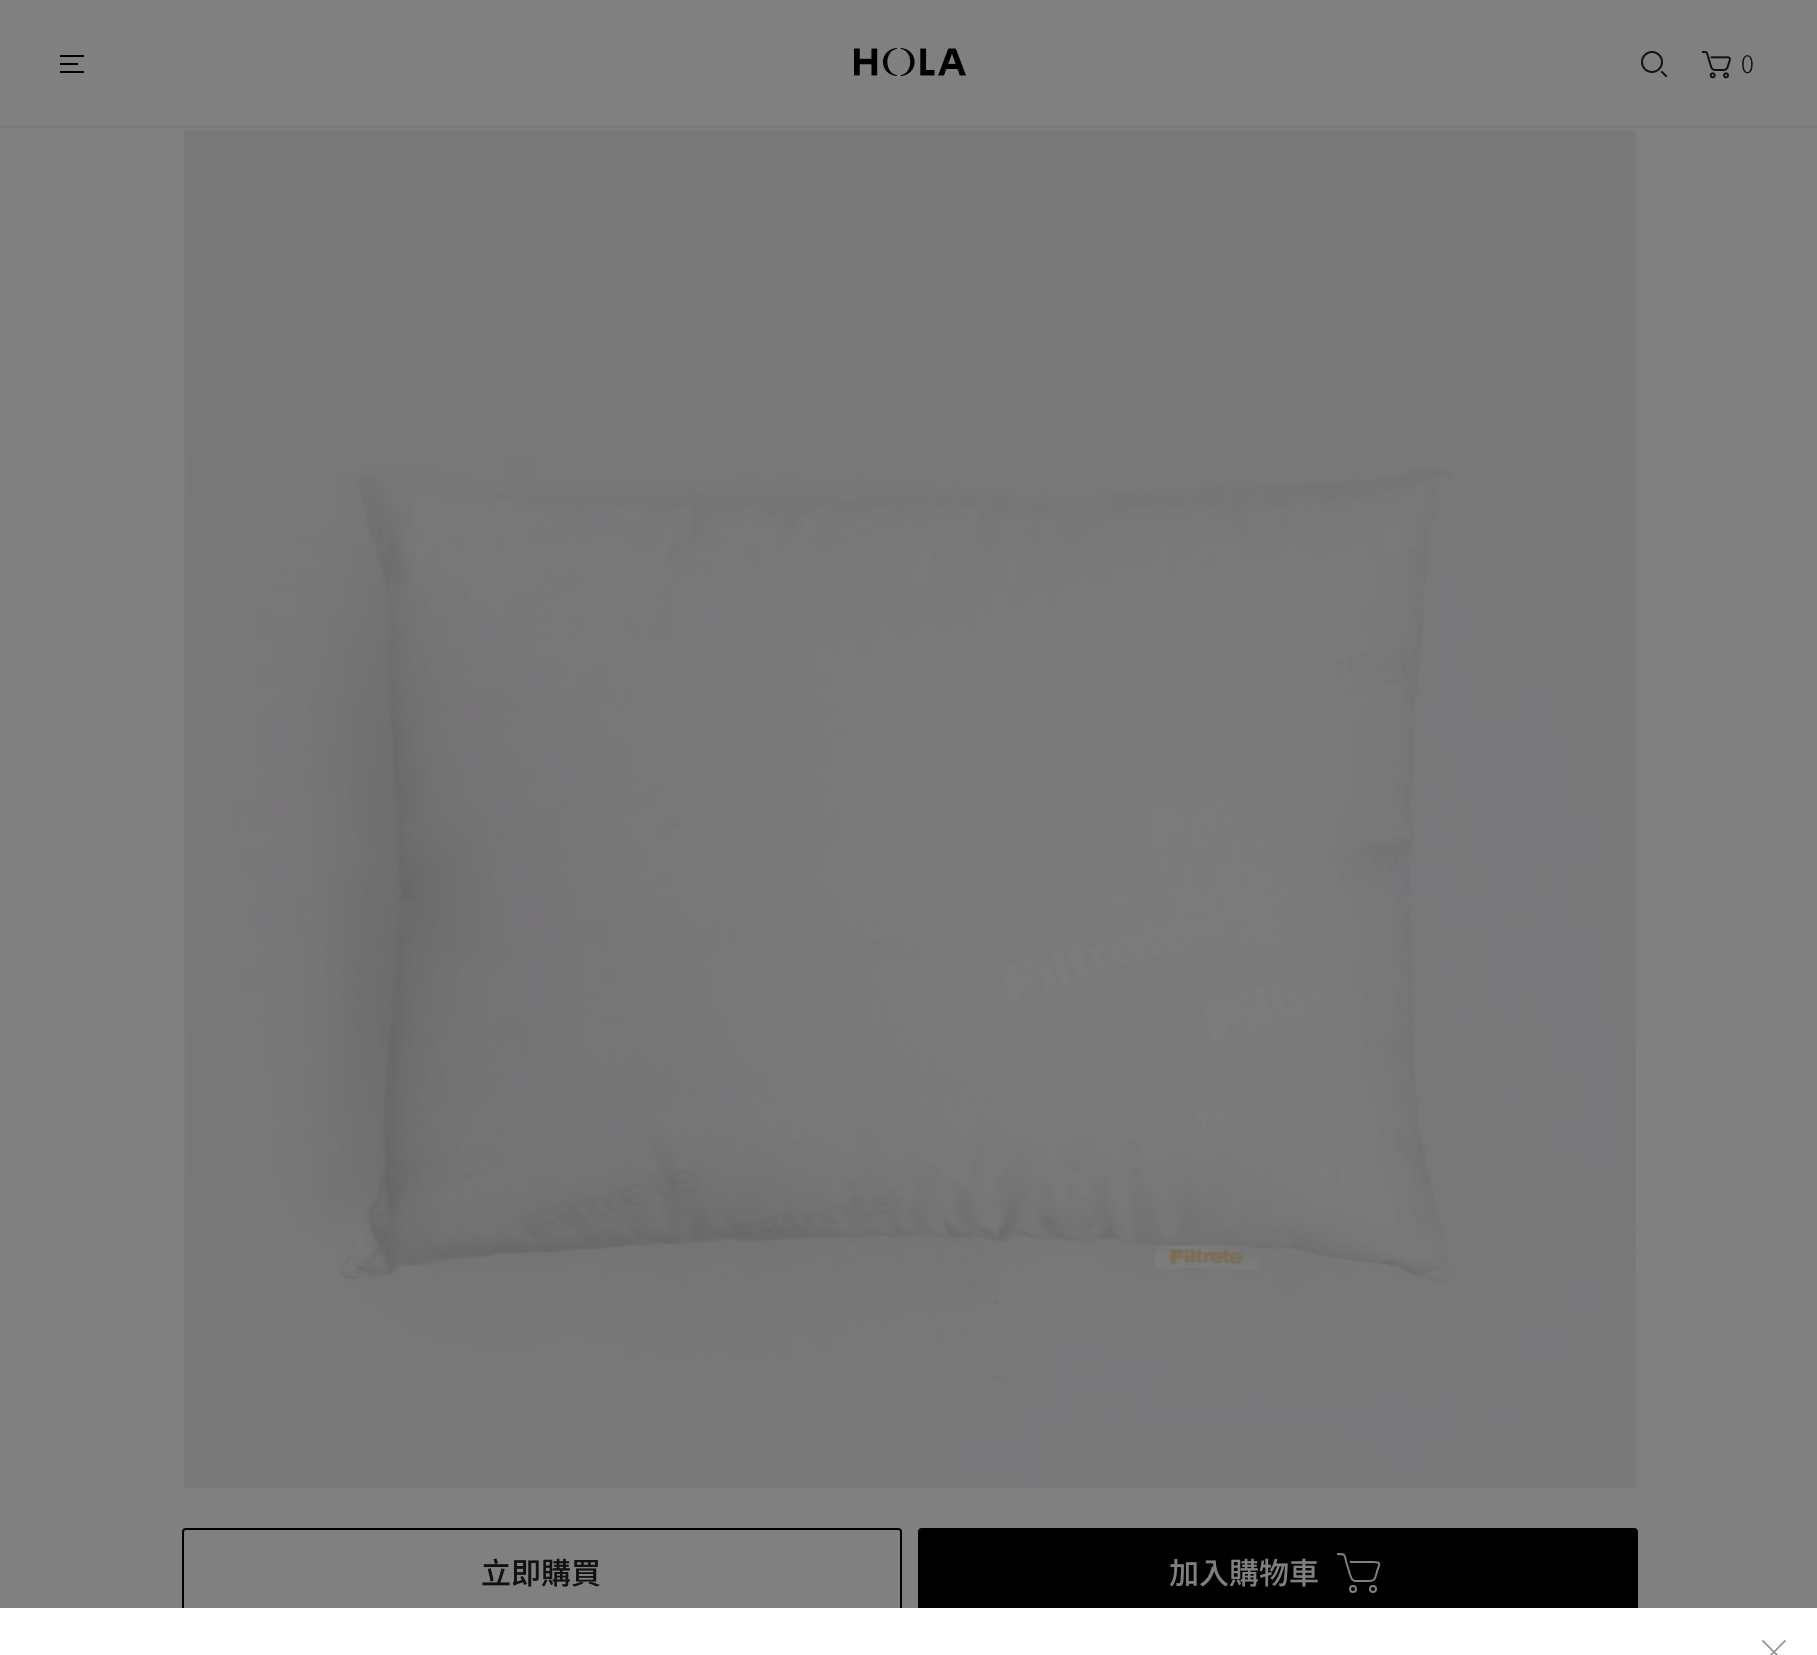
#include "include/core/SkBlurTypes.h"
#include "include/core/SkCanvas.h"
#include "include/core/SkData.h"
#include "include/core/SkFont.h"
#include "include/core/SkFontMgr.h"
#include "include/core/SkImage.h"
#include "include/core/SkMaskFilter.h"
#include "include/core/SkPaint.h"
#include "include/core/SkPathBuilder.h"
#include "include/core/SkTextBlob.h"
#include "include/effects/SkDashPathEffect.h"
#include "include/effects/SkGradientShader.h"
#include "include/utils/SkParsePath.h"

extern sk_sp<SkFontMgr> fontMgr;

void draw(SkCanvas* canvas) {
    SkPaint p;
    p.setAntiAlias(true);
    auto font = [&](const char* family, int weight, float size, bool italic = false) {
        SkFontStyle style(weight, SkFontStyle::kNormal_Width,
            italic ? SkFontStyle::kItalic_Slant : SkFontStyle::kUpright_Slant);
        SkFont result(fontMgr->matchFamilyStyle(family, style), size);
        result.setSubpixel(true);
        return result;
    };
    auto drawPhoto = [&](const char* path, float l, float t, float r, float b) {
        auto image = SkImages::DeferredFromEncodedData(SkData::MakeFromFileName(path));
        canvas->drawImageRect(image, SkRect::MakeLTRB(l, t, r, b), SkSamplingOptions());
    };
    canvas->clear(0xFF808080);
    p.setColor(0xFF7A7976);
    canvas->drawRect(SkRect::MakeLTRB(0, 126, 1817, 128), p);
    drawPhoto("media/1.png", 60, 55, 84, 73);
    drawPhoto("media/2.png", 854, 48, 966, 76);
    drawPhoto("media/3.png", 1641, 51, 1668, 78);
    drawPhoto("media/4.png", 1702, 51, 1731, 79);
    auto font1 = font("Noto Sans TC", 300, 24);
    p.setColor(0xFF111111);
    canvas->drawString("0", 1741, 73, font1, p);
    drawPhoto("media/5.png", 183, 130, 1636, 1488);
    p.setStyle(SkPaint::kStroke_Style);
    p.setStrokeWidth(2);
    p.setColor(0xFF000000);
    canvas->drawRoundRect(SkRect::MakeLTRB(183, 1529, 901, 1615), 3, 3, p);
    auto font2 = font("Noto Sans TC", 500, 30);
    p.setStyle(SkPaint::kFill_Style);
    p.setColor(0xFF111111);
    canvas->drawString("立即購買", 481, 1584, font2, p);
    p.setColor(0xFF000000);
    canvas->drawRoundRect(SkRect::MakeLTRB(919, 1529, 1637, 1615), 3, 3, p);
    p.setStyle(SkPaint::kStroke_Style);
    canvas->drawRoundRect(SkRect::MakeLTRB(919, 1529, 1637, 1615), 3, 3, p);
    p.setStyle(SkPaint::kFill_Style);
    p.setColor(0xFF808080);
    canvas->drawString("加入購物車", 1169, 1584, font2, p);
    p.setStyle(SkPaint::kStroke_Style);
    canvas->drawPath(SkPathBuilder().moveTo(1337, 1554).cubicTo(1346, 1554, 1344, 1553.5f, 1346.5f, 1563).lineTo(1350, 1574.5f).cubicTo(1351, 1577, 1351.5f, 1581, 1355, 1581).lineTo(1368.5f, 1581).cubicTo(1376, 1581, 1375, 1578, 1377, 1571.5f).cubicTo(1379.5f, 1563.5f, 1382, 1562, 1372.5f, 1562).lineTo(1350, 1562).detach(), p);
    canvas->drawCircle(1353, 1589, 3, p);
    canvas->drawCircle(1373, 1589, 3, p);
    p.setStyle(SkPaint::kFill_Style);
    p.setColor(0xFFFFFFFF);
    canvas->drawRect(SkRect::MakeLTRB(0, 1608, 1817, 1655), p);
    p.setStyle(SkPaint::kStroke_Style);
    p.setStrokeWidth(1.7f);
    p.setStrokeCap(SkPaint::kSquare_Cap);
    p.setStrokeJoin(SkPaint::kRound_Join);
    p.setColor(0xFF949494);
    canvas->drawPath(SkPathBuilder().moveTo(1785, 1641).lineTo(1763, 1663).moveTo(1785, 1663).lineTo(1763, 1641).detach(), p);
}
